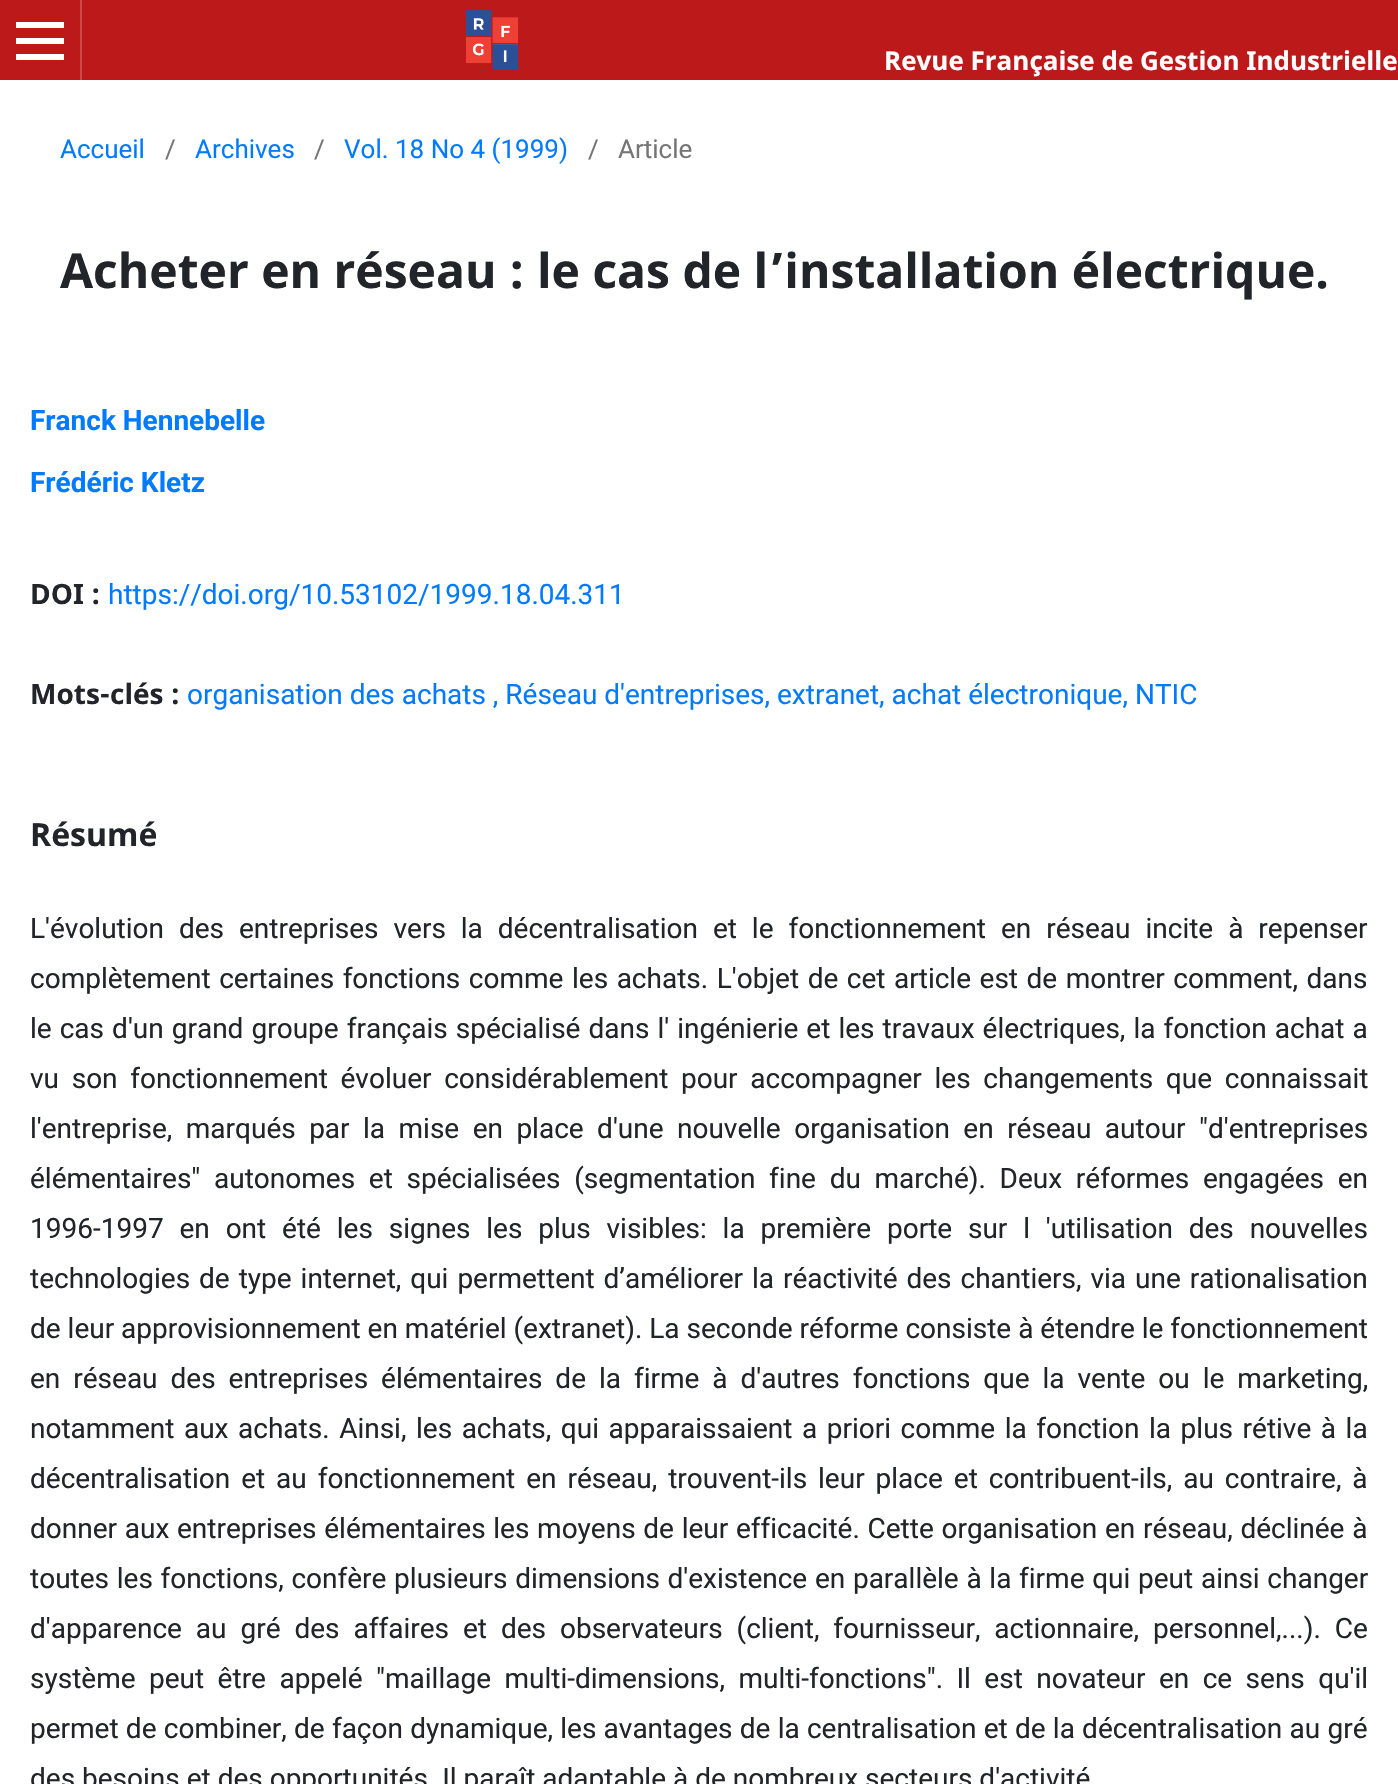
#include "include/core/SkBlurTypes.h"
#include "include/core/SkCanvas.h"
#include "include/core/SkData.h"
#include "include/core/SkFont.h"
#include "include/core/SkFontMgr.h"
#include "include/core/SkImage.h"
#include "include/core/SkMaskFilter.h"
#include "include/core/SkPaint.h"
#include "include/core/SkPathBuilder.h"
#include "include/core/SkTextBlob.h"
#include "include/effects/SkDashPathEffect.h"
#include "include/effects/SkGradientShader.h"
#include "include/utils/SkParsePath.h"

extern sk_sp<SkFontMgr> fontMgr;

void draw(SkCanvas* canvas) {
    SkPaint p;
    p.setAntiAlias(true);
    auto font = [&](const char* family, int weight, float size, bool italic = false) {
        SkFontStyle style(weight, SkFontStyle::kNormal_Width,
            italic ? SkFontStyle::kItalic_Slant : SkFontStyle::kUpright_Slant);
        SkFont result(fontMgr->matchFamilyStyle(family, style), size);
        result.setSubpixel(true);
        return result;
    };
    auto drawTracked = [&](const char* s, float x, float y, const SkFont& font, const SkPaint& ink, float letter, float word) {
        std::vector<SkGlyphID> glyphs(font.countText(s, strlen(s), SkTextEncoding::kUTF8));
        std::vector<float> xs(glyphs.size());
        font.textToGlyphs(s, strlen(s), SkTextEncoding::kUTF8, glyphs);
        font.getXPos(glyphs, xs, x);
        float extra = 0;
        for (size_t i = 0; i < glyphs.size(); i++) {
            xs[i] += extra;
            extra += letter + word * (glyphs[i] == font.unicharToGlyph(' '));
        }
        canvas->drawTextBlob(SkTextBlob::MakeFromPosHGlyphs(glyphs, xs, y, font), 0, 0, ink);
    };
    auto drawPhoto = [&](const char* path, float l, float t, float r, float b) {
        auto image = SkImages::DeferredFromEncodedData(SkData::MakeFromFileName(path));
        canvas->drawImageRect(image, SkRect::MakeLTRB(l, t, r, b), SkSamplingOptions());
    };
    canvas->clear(0xFFFFFFFF);
    {
        const struct { float l, t, r, b; SkColor color; } items[] = {
            {0, 0, 1398, 80, 0xFFBC1A1A},
            {80, 0, 82, 80, 0xFFC94848},
            {16, 54, 64, 60, 0xFFFFFFFF},
            {16, 22, 64, 28, 0xFFFFFFFF},
            {16, 38, 64, 44, 0xFFFFFFFF},
        };
        for (auto [l, t, r, b, color] : items) {
            p.setColor(color);
            canvas->drawRect(SkRect::MakeLTRB(l, t, r, b), p);
        }
    }
    drawPhoto("media/1.png", 465, 9, 519, 70);
    auto font1 = font("Noto Sans", 700, 26);
    canvas->drawString("Revue Française de Gestion Industrielle", 884, 70, font1, p);
    auto font2 = font("Roboto", 400, 26);
    p.setColor(0xFF007BFF);
    canvas->drawString("Accueil", 60, 158, font2, p);
    p.setColor(0xFF757575);
    canvas->drawString("/", 165, 158, font2, p);
    p.setColor(0xFF007BFF);
    canvas->drawString("Archives", 195, 158, font2, p);
    p.setColor(0xFF757575);
    canvas->drawString("/", 314, 158, font2, p);
    p.setColor(0xFF007BFF);
    canvas->drawString("Vol. 18 No 4 (1999)", 344, 158, font2, p);
    p.setColor(0xFF757575);
    canvas->drawString("/", 588, 158, font2, p);
    canvas->drawString("Article", 618, 158, font2, p);
    auto font3 = font("Noto Sans", 700, 48);
    p.setColor(0xFF212529);
    canvas->drawString("Acheter en réseau : le cas de l’installation électrique.", 60, 288, font3, p);
    auto font4 = font("Roboto", 700, 28);
    p.setColor(0xFF007BFF);
    canvas->drawString("Franck Hennebelle", 30, 430, font4, p);
    canvas->drawString("Frédéric Kletz", 30, 492, font4, p);
    auto font5 = font("Noto Sans", 700, 28);
    p.setColor(0xFF212529);
    canvas->drawString("DOI :", 30, 604, font5, p);
    auto font6 = font("Roboto", 400, 28);
    p.setColor(0xFF007BFF);
    canvas->drawString("https://doi.org/10.53102/1999.18.04.311", 108, 604, font6, p);
    p.setColor(0xFF212529);
    canvas->drawString("Mots-clés :", 30, 704, font5, p);
    p.setColor(0xFF007BFF);
    canvas->drawString("organisation des achats , Réseau d'entreprises, extranet, achat électronique, NTIC", 187, 704, font6, p);
    auto font7 = font("Noto Sans", 700, 32);
    p.setColor(0xFF212529);
    canvas->drawString("Résumé", 30, 846, font7, p);
    drawTracked("L'évolution des entreprises vers la décentralisation et le fonctionnement en réseau incite à repenser", 30, 938, font6, p, 0, 8);
    drawTracked("complètement certaines fonctions comme les achats. L'objet de cet article est de montrer comment, dans", 30, 988, font6, p, 0, 1.6f);
    drawTracked("le cas d'un grand groupe français spécialisé dans l' ingénierie et les travaux électriques, la fonction achat a", 30, 1038, font6, p, 0, 1.1f);
    drawTracked("vu son fonctionnement évoluer considérablement pour accompagner les changements que connaissait", 30, 1088, font6, p, 0, 5.75f);
    drawTracked("l'entreprise, marqués par la mise en place d'une nouvelle organisation en réseau autour \"d'entreprises", 30, 1138, font6, p, 0, 6.5f);
    drawTracked("élémentaires\" autonomes et spécialisées (segmentation fine du marché). Deux réformes engagées en", 30, 1188, font6, p, 0, 6.75f);
    drawTracked("1996-1997 en ont été les signes les plus visibles: la première porte sur l 'utilisation des nouvelles", 30, 1238, font6, p, 0, 8.9f);
    drawTracked("technologies de type internet, qui permettent d’améliorer la réactivité des chantiers, via une rationalisation", 30, 1288, font6, p, 0, 2);
    canvas->drawString("de leur approvisionnement en matériel (extranet). La seconde réforme consiste à étendre le fonctionnement", 30, 1338, font6, p);
    drawTracked("en réseau des entreprises élémentaires de la firme à d'autres fonctions que la vente ou le marketing,", 30, 1388, font6, p, 0, 6);
    drawTracked("notamment aux achats. Ainsi, les achats, qui apparaissaient a priori comme la fonction la plus rétive à la", 30, 1438, font6, p, 0, 2.6f);
    drawTracked("décentralisation et au fonctionnement en réseau, trouvent-ils leur place et contribuent-ils, au contraire, à", 30, 1488, font6, p, 0, 4);
    drawTracked("donner aux entreprises élémentaires les moyens de leur efficacité. Cette organisation en réseau, déclinée à", 30, 1538, font6, p, 0, 0.75f);
    drawTracked("toutes les fonctions, confère plusieurs dimensions d'existence en parallèle à la firme qui peut ainsi changer", 30, 1588, font6, p, 0, 0.75f);
    drawTracked("d'apparence au gré des affaires et des observateurs (client, fournisseur, actionnaire, personnel,...). Ce", 30, 1638, font6, p, 0, 7);
    drawTracked("système peut être appelé \"maillage multi-dimensions, multi-fonctions\". Il est novateur en ce sens qu'il", 30, 1688, font6, p, 0, 6.5f);
    drawTracked("permet de combiner, de façon dynamique, les avantages de la centralisation et de la décentralisation au gré", 30, 1738, font6, p, 0, 0.3f);
    canvas->drawString("des besoins et des opportunités. Il paraît adaptable à de nombreux secteurs d'activité", 30, 1788, font6, p);
}
